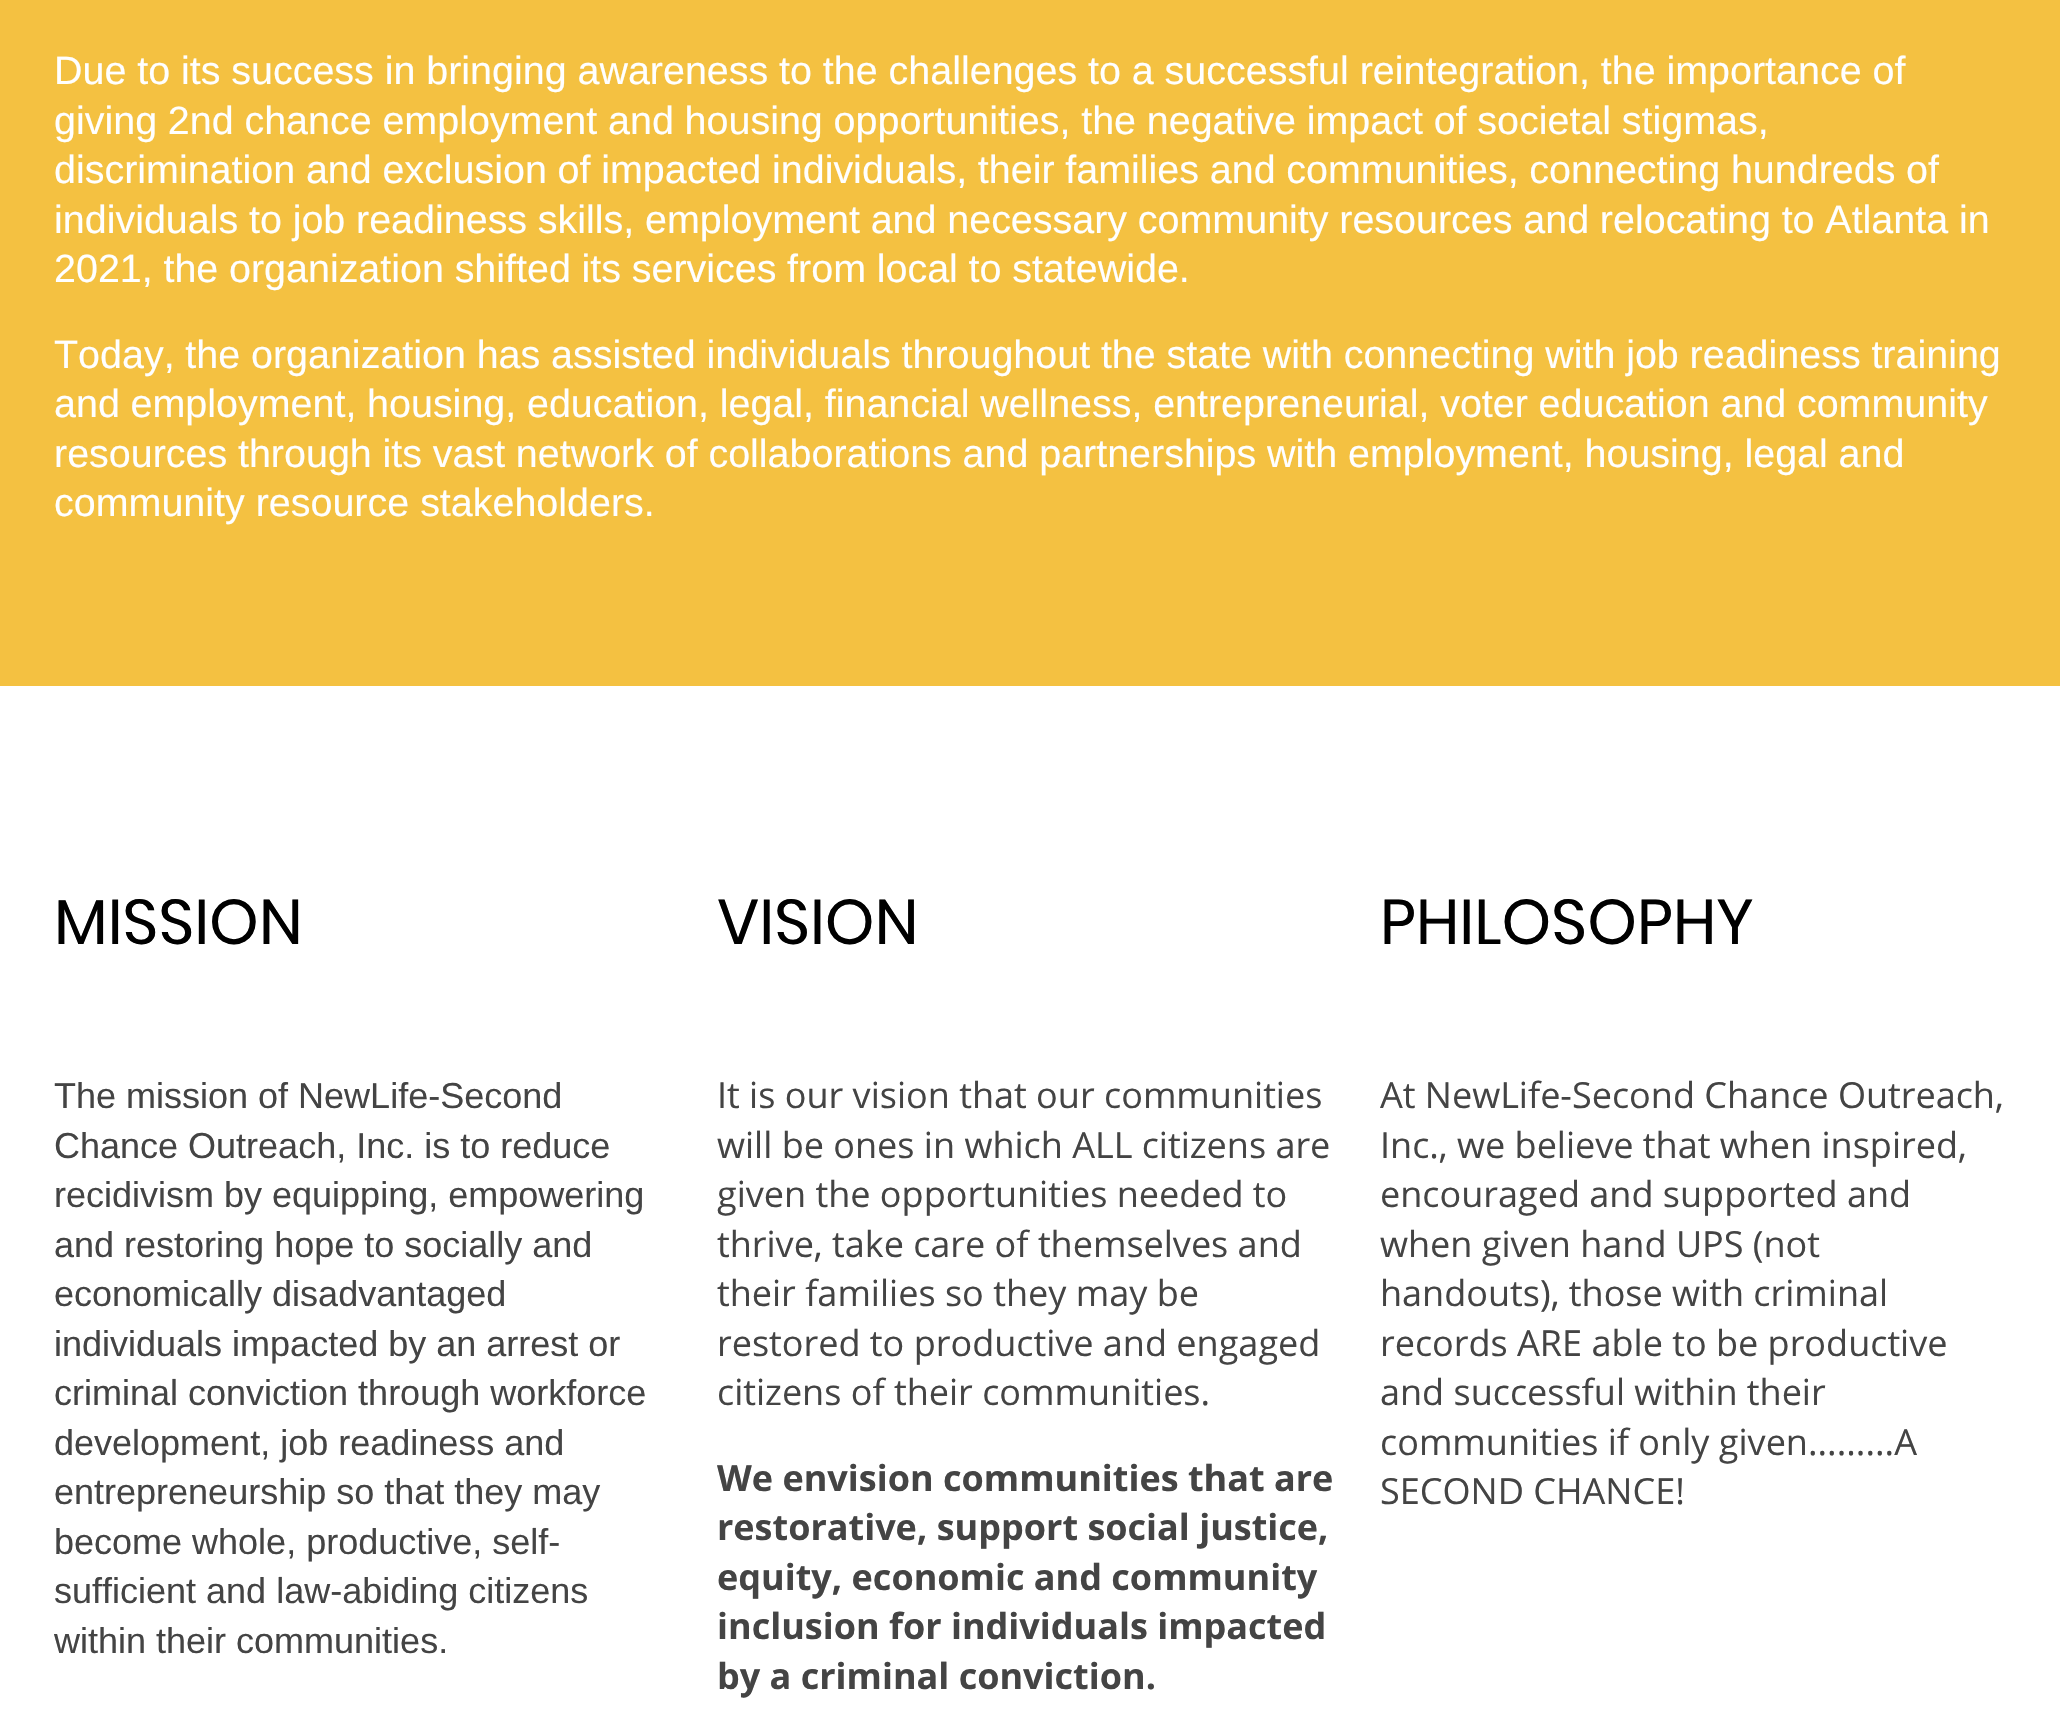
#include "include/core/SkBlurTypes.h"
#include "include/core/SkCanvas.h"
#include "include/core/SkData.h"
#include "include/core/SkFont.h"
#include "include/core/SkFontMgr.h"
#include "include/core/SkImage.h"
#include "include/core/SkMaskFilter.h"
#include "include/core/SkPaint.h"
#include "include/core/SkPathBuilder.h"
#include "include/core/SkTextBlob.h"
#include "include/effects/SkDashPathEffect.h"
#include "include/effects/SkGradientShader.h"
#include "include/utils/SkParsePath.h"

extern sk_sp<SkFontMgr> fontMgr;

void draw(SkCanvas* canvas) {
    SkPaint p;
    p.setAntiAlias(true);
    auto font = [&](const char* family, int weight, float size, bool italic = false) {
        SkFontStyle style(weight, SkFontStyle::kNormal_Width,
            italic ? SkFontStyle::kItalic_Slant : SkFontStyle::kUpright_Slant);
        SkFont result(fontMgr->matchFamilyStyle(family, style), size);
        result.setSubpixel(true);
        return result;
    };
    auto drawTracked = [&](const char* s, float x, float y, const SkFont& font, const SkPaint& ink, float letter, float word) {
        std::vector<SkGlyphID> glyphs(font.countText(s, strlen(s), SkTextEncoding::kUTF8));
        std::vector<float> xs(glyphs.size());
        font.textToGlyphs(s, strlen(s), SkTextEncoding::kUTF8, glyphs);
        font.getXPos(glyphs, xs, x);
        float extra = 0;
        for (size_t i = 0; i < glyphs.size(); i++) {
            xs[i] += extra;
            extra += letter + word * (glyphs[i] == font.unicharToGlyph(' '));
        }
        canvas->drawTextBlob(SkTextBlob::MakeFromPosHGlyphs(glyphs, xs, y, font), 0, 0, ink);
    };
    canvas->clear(0xFFF4C141);
    auto font1 = font("Liberation Sans", 400, 39.45f);
    p.setColor(0xFFFFFFFF);
    drawTracked("Due to its success in bringing awareness to the challenges to a successful reintegration, the importance of", 54, 84, font1, p, 0, -0.1f);
    drawTracked("giving 2nd chance employment and housing opportunities, the negative impact of societal stigmas,", 54, 134, font1, p, 0, -0.2f);
    drawTracked("discrimination and exclusion of impacted individuals, their families and communities, connecting hundreds of", 54, 183, font1, p, 0, -0.25f);
    drawTracked("individuals to job readiness skills, employment and necessary community resources and relocating to Atlanta in", 54, 233, font1, p, 0, -0.2f);
    drawTracked("2021, the organization shifted its services from local to statewide.", 54, 282, font1, p, 0, -0.25f);
    drawTracked("Today, the organization has assisted individuals throughout the state with connecting with job readiness training", 54, 368, font1, p, 0, -0.2f);
    drawTracked("and employment, housing, education, legal, financial wellness, entrepreneurial, voter education and community", 54, 417, font1, p, 0, -0.25f);
    drawTracked("resources through its vast network of collaborations and partnerships with employment, housing, legal and", 54, 467, font1, p, 0, -0.2f);
    canvas->drawString("community resource stakeholders.", 54, 516, font1, p);
    canvas->drawRect(SkRect::MakeLTRB(0, 686, 2060, 1722), p);
    auto font2 = font("Poppins", 400, 63);
    p.setColor(0xFF000000);
    canvas->drawString("MISSION", 54, 944, font2, p);
    auto font3 = font("Liberation Sans", 400, 36);
    p.setColor(0xFF444444);
    {
        const struct { const char* s; float x, y; } items[] = {
            {"The mission of NewLife-Second", 54, 1108},
            {"Chance Outreach, Inc. is to reduce", 54, 1158},
            {"recidivism by equipping, empowering", 54, 1207},
            {"and restoring hope to socially and", 54, 1257},
            {"economically disadvantaged", 54, 1306},
            {"individuals impacted by an arrest or", 54, 1356},
            {"criminal conviction through workforce", 54, 1405},
            {"development, job readiness and", 54, 1455},
            {"entrepreneurship so that they may", 54, 1504},
            {"become whole, productive, self-", 54, 1554},
            {"sufficient and law-abiding citizens", 54, 1603},
            {"within their communities.", 54, 1653},
        };
        for (auto [s, x, y] : items) {
            canvas->drawString(s, x, y, font3, p);
        }
    }
    p.setColor(0xFF000000);
    canvas->drawString("VISION", 717, 944, font2, p);
    auto font4 = font("Open Sans", 400, 36);
    p.setColor(0xFF444444);
    {
        const struct { const char* s; float x, y; } items[] = {
            {"It is our vision that our communities", 717, 1108},
            {"will be ones in which ALL citizens are", 717, 1158},
            {"given the opportunities needed to", 717, 1207},
            {"thrive, take care of themselves and", 717, 1257},
            {"their families so they may be", 717, 1306},
            {"restored to productive and engaged", 717, 1356},
            {"citizens of their communities.", 717, 1405},
        };
        for (auto [s, x, y] : items) {
            canvas->drawString(s, x, y, font4, p);
        }
    }
    auto font5 = font("Open Sans", 700, 36);
    {
        const struct { const char* s; float x, y; } items[] = {
            {"We envision communities that are", 717, 1491},
            {"restorative, support social justice,", 717, 1540},
            {"equity, economic and community", 717, 1590},
            {"inclusion for individuals impacted", 717, 1639},
            {"by a criminal conviction.", 717, 1689},
        };
        for (auto [s, x, y] : items) {
            canvas->drawString(s, x, y, font5, p);
        }
    }
    p.setColor(0xFF000000);
    canvas->drawString("PHILOSOPHY", 1380, 944, font2, p);
    p.setColor(0xFF444444);
    {
        const struct { const char* s; float x, y; } items[] = {
            {"At NewLife-Second Chance Outreach,", 1380, 1108},
            {"Inc., we believe that when inspired,", 1380, 1158},
            {"encouraged and supported and", 1380, 1207},
            {"when given hand UPS (not", 1380, 1257},
            {"handouts), those with criminal", 1380, 1306},
            {"records ARE able to be productive", 1380, 1356},
            {"and successful within their", 1380, 1405},
            {"communities if only given.........A", 1380, 1455},
            {"SECOND CHANCE!", 1380, 1504},
        };
        for (auto [s, x, y] : items) {
            canvas->drawString(s, x, y, font4, p);
        }
    }
}
